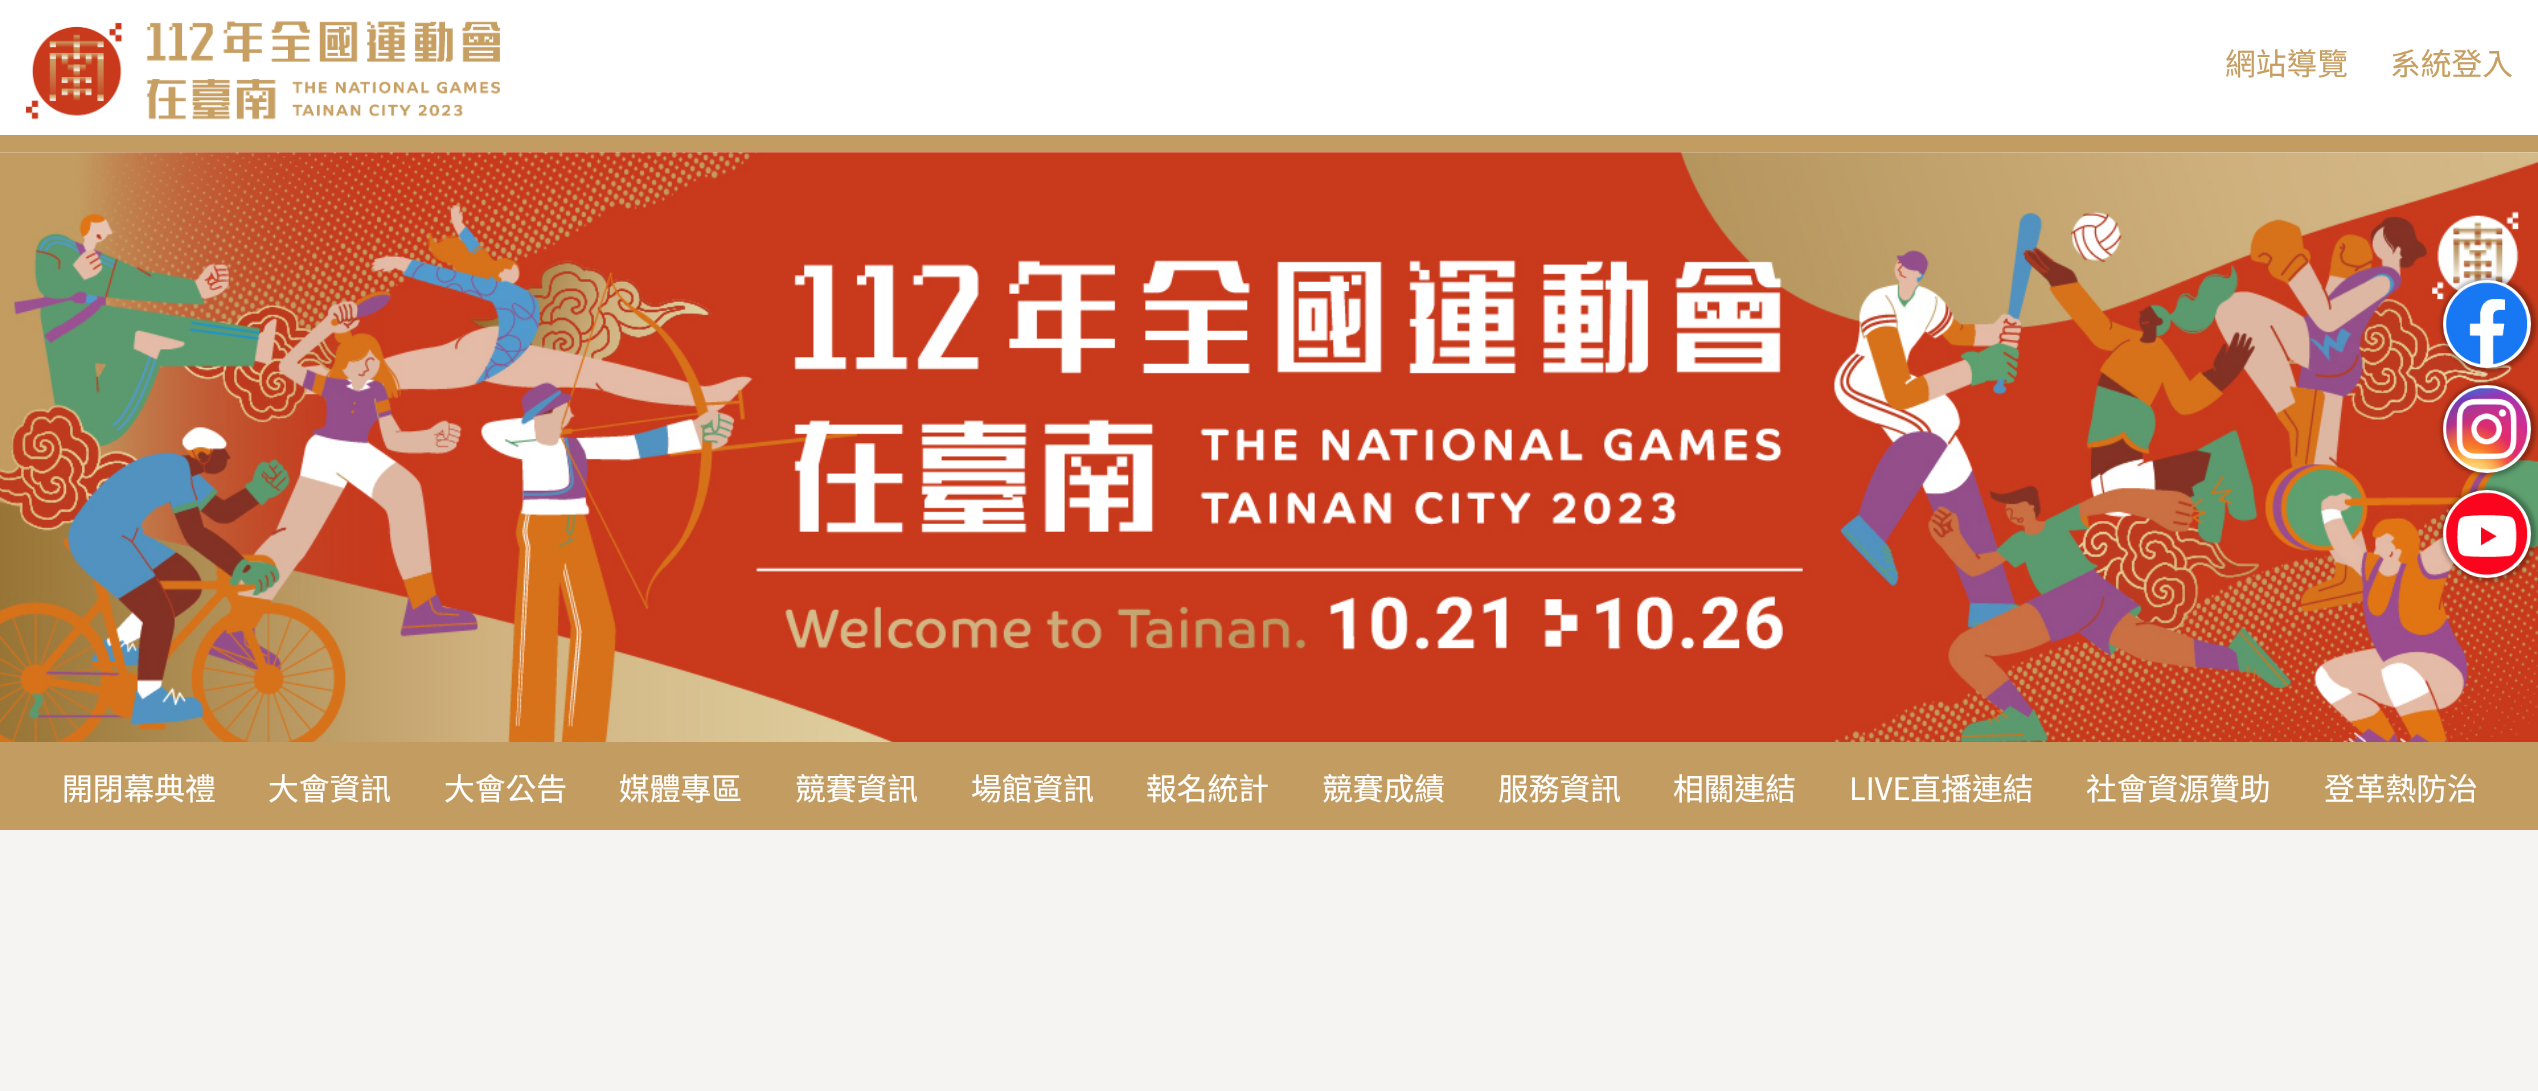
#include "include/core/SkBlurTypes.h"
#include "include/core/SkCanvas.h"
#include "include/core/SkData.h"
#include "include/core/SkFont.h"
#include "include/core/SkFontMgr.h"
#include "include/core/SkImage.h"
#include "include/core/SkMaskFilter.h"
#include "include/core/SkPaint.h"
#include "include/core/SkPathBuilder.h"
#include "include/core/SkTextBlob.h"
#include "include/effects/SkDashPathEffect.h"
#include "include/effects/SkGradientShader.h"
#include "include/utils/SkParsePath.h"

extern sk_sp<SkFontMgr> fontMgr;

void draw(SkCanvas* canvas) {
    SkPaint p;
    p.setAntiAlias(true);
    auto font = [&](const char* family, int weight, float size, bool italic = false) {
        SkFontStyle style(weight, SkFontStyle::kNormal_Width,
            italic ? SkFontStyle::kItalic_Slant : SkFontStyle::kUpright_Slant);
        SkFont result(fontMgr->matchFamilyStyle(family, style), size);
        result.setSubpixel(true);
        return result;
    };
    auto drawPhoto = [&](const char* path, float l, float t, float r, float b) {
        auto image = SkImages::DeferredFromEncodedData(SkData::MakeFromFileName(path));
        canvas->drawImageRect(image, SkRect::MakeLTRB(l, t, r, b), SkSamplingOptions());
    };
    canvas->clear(0xFFFFFFFF);
    drawPhoto("media/1.png", 26, 21, 501, 120);
    auto font1 = font("Noto Sans CJK TC", 400, 30.75f);
    p.setColor(0xFFC79F62);
    canvas->drawString("網站導覽", 2225, 75, font1, p);
    canvas->drawString("系統登入", 2390, 75, font1, p);
    p.setColor(0xFFC39C61);
    canvas->drawRect(SkRect::MakeLTRB(0, 135, 2538, 152), p);
    drawPhoto("media/5.png", 0, 152, 2538, 742);
    p.setColor(0x4D000000);
    p.setMaskFilter(SkMaskFilter::MakeBlur(kNormal_SkBlurStyle, 2));
    canvas->drawRoundRect(SkRect::MakeLTRB(2441, 277, 2536, 371), 47, 47, p);
    p.setMaskFilter(nullptr);
    p.setColor(0xFFFFFFFF);
    canvas->drawCircle(2487, 324, 44, p);
    drawPhoto("media/2.png", 2446, 282, 2528, 365);
    p.setColor(0x4D000000);
    p.setMaskFilter(SkMaskFilter::MakeBlur(kNormal_SkBlurStyle, 2));
    canvas->drawRoundRect(SkRect::MakeLTRB(2441, 382, 2536, 476), 47, 47, p);
    p.setMaskFilter(nullptr);
    p.setColor(0xFFFFFFFF);
    canvas->drawCircle(2487, 429, 44, p);
    drawPhoto("media/3.png", 2446, 388, 2528, 470);
    p.setColor(0x4D000000);
    p.setMaskFilter(SkMaskFilter::MakeBlur(kNormal_SkBlurStyle, 2));
    canvas->drawRoundRect(SkRect::MakeLTRB(2441, 487, 2536, 581), 47, 47, p);
    p.setMaskFilter(nullptr);
    p.setColor(0xFFFFFFFF);
    canvas->drawCircle(2487, 534, 44, p);
    drawPhoto("media/4.png", 2446, 492, 2528, 575);
    p.setColor(0xFFC39C61);
    canvas->drawRect(SkRect::MakeLTRB(0, 742, 2538, 830), p);
    p.setColor(0xFFFFFFFF);
    {
        const struct { const char* s; float x, y; } items[] = {
            {"開閉幕典禮", 62, 800},
            {"大會資訊", 268, 800},
            {"大會公告", 444, 800},
            {"媒體專區", 619, 800},
            {"競賽資訊", 795, 800},
            {"場館資訊", 971, 800},
            {"報名統計", 1146, 800},
            {"競賽成績", 1322, 800},
            {"服務資訊", 1498, 800},
            {"相關連結", 1673, 800},
            {"LIVE直播連結", 1849, 800},
            {"社會資源贊助", 2086, 800},
            {"登革熱防治", 2324, 800},
        };
        for (auto [s, x, y] : items) {
            canvas->drawString(s, x, y, font1, p);
        }
    }
    p.setColor(0xFFF5F4F2);
    canvas->drawRect(SkRect::MakeLTRB(0, 830, 2538, 1091), p);
}
